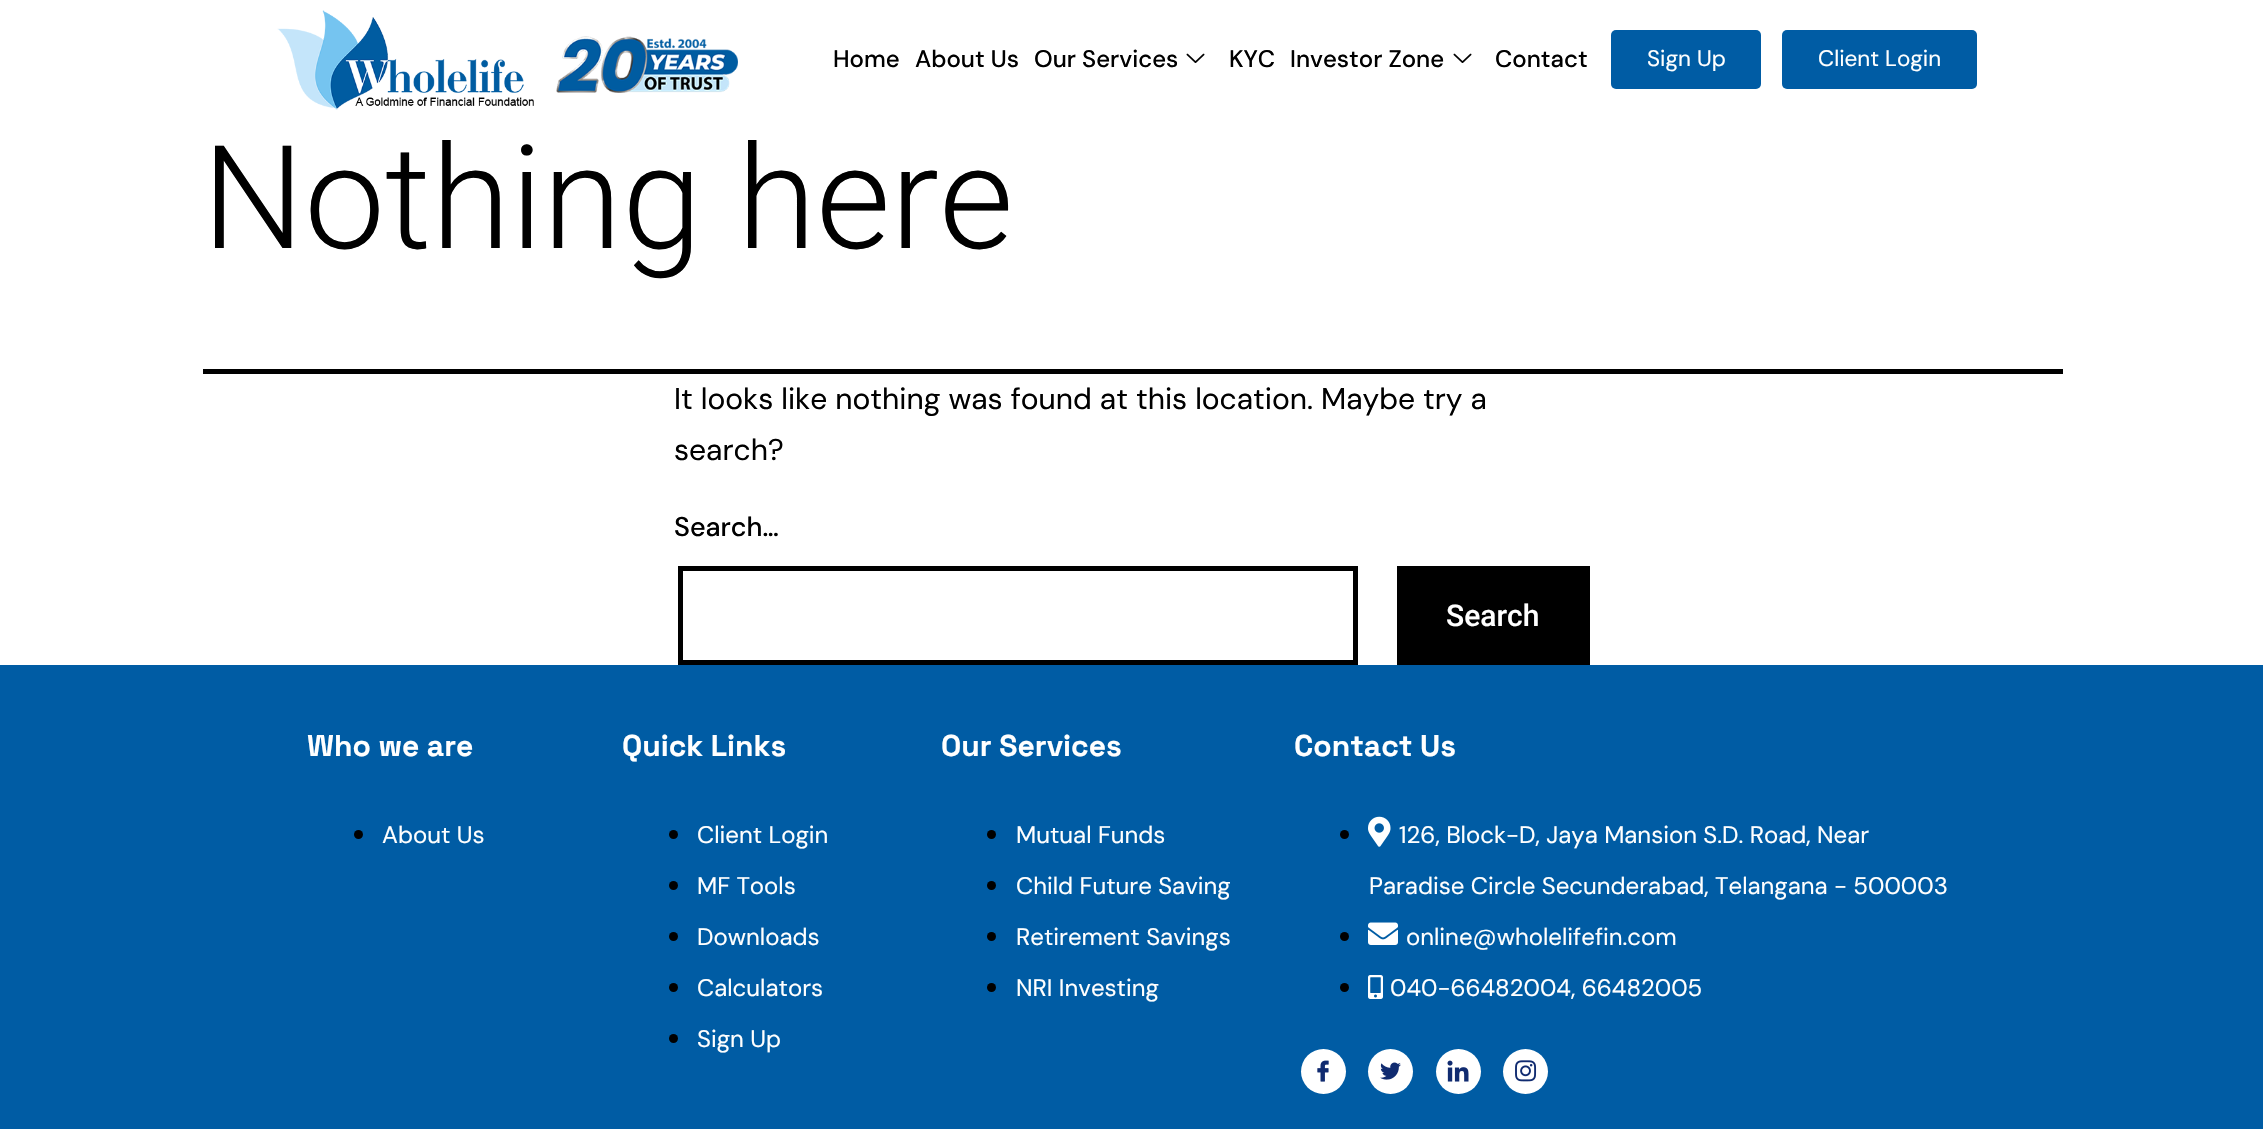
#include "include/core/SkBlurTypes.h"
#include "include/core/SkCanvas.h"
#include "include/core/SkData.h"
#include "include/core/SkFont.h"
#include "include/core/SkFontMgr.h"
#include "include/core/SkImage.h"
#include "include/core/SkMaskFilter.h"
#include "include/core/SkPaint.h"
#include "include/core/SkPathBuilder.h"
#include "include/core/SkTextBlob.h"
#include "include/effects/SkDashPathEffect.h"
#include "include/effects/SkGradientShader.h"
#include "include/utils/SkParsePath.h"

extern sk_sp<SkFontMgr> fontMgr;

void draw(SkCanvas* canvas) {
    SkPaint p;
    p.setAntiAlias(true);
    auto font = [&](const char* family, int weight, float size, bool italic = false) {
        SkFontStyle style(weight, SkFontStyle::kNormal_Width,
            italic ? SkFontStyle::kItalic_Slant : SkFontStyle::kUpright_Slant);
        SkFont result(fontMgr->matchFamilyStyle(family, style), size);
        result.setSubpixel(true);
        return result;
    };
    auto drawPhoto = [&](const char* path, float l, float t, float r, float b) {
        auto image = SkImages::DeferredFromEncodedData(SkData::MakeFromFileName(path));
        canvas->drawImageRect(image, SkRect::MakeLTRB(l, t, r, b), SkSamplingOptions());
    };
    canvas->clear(0xFFFFFFFF);
    drawPhoto("media/1.png", 277, 10, 534, 110);
    drawPhoto("media/2.png", 556, 36, 738, 93);
    auto font1 = font("DM Sans", 500, 24);
    p.setColor(0xFF000000);
    {
        const struct { const char* s; float x, y; } items[] = {
            {"Home", 833, 67},
            {"About Us", 915, 67},
            {"Our Services", 1034, 67},
        };
        for (auto [s, x, y] : items) {
            canvas->drawString(s, x, y, font1, p);
        }
    }
    drawPhoto("media/3.png", 1186, 53, 1205, 63);
    canvas->drawString("KYC", 1229, 67, font1, p);
    canvas->drawString("Investor Zone", 1290, 67, font1, p);
    drawPhoto("media/3.png", 1453, 53, 1472, 63);
    canvas->drawString("Contact", 1495, 67, font1, p);
    p.setColor(0xFF005CA4);
    canvas->drawRoundRect(SkRect::MakeLTRB(1611, 30, 1761, 89), 5, 5, p);
    auto font2 = font("DM Sans", 400, 22.5f);
    p.setColor(0xFFFFFFFF);
    canvas->drawString("Sign Up", 1647, 66, font2, p);
    p.setColor(0xFF005CA4);
    canvas->drawRoundRect(SkRect::MakeLTRB(1782, 30, 1977, 89), 5, 5, p);
    p.setColor(0xFFFFFFFF);
    canvas->drawString("Client Login", 1818, 66, font2, p);
    p.setColor(0xFF000000);
    canvas->drawRect(SkRect::MakeLTRB(203, 369, 2063, 374), p);
    auto font3 = font("Roboto", 300, 144);
    canvas->drawString("Nothing here", 202, 248, font3, p);
    auto font4 = font("DM Sans", 400, 30);
    canvas->drawString("It looks like nothing was found at this location. Maybe try a", 674, 409, font4, p);
    canvas->drawString("search?", 674, 460, font4, p);
    auto font5 = font("DM Sans", 500, 27);
    canvas->drawString("Search…", 674, 536, font5, p);
    p.setStyle(SkPaint::kStroke_Style);
    p.setStrokeWidth(5);
    canvas->drawRect(SkRect::MakeLTRB(680.5f, 568.5f, 1355.5f, 662.5f), p);
    p.setStyle(SkPaint::kFill_Style);
    canvas->drawRect(SkRect::MakeLTRB(1397, 566, 1590, 665), p);
    auto font6 = font("Roboto", 500, 30);
    p.setColor(0xFFFFFFFF);
    canvas->drawString("Search", 1446, 626, font6, p);
    p.setColor(0xFF005CA4);
    canvas->drawRect(SkRect::MakeLTRB(0, 665, 2263, 1129), p);
    auto font7 = font("Space Grotesk", 700, 30);
    p.setColor(0xFFFFFFFF);
    canvas->drawString("Who we are", 307, 756, font7, p);
    p.setColor(0xFF000000);
    canvas->drawCircle(358.5f, 834.5f, 4.5f, p);
    auto font8 = font("DM Sans", 400, 24);
    p.setColor(0xFFFFFFFF);
    canvas->drawString("About Us", 382, 843, font8, p);
    canvas->drawString("Quick Links", 622, 756, font7, p);
    p.setColor(0xFF000000);
    canvas->drawCircle(673.5f, 834.5f, 4.5f, p);
    p.setColor(0xFFFFFFFF);
    canvas->drawString("Client Login", 697, 843, font8, p);
    p.setColor(0xFF000000);
    canvas->drawCircle(673.5f, 885.5f, 4.5f, p);
    p.setColor(0xFFFFFFFF);
    canvas->drawString("MF Tools", 697, 894, font8, p);
    p.setColor(0xFF000000);
    canvas->drawCircle(673.5f, 936.5f, 4.5f, p);
    p.setColor(0xFFFFFFFF);
    canvas->drawString("Downloads", 697, 945, font8, p);
    p.setColor(0xFF000000);
    canvas->drawCircle(673.5f, 987.5f, 4.5f, p);
    p.setColor(0xFFFFFFFF);
    canvas->drawString("Calculators", 697, 996, font8, p);
    p.setColor(0xFF000000);
    canvas->drawCircle(673.5f, 1038.5f, 4.5f, p);
    p.setColor(0xFFFFFFFF);
    canvas->drawString("Sign Up", 697, 1047, font8, p);
    canvas->drawString("Our Services", 941, 756, font7, p);
    p.setColor(0xFF000000);
    canvas->drawCircle(991.5f, 834.5f, 4.5f, p);
    p.setColor(0xFFFFFFFF);
    canvas->drawString("Mutual Funds", 1016, 843, font8, p);
    p.setColor(0xFF000000);
    canvas->drawCircle(991.5f, 885.5f, 4.5f, p);
    p.setColor(0xFFFFFFFF);
    canvas->drawString("Child Future Saving", 1016, 894, font8, p);
    p.setColor(0xFF000000);
    canvas->drawCircle(991.5f, 936.5f, 4.5f, p);
    p.setColor(0xFFFFFFFF);
    canvas->drawString("Retirement Savings", 1016, 945, font8, p);
    p.setColor(0xFF000000);
    canvas->drawCircle(991.5f, 987.5f, 4.5f, p);
    p.setColor(0xFFFFFFFF);
    canvas->drawString("NRI Investing", 1016, 996, font8, p);
    canvas->drawString("Contact Us", 1294, 756, font7, p);
    p.setColor(0xFF000000);
    canvas->drawCircle(1344.5f, 834.5f, 4.5f, p);
    drawPhoto("media/4.png", 1368, 816, 1391, 847);
    p.setColor(0xFFFFFFFF);
    canvas->drawString("126, Block-D, Jaya Mansion S.D. Road, Near", 1399, 843, font8, p);
    canvas->drawString("Paradise Circle Secunderabad, Telangana - 500003", 1369, 894, font8, p);
    p.setColor(0xFF000000);
    canvas->drawCircle(1344.5f, 936.5f, 4.5f, p);
    drawPhoto("media/5.png", 1368, 922, 1398, 945);
    p.setColor(0xFFFFFFFF);
    canvas->drawString("online@wholelifefin.com", 1406, 945, font8, p);
    p.setColor(0xFF000000);
    canvas->drawCircle(1344.5f, 987.5f, 4.5f, p);
    drawPhoto("media/6.png", 1368, 975, 1383, 999);
    p.setColor(0xFFFFFFFF);
    canvas->drawString("040-66482004, 66482005", 1390, 996, font8, p);
    canvas->drawCircle(1323.5f, 1071.5f, 22.5f, p);
    drawPhoto("media/7.png", 1317, 1060, 1329, 1082);
    canvas->drawCircle(1390.5f, 1071.5f, 22.5f, p);
    drawPhoto("media/8.png", 1380, 1062, 1401, 1080);
    canvas->drawCircle(1458.5f, 1071.5f, 22.5f, p);
    drawPhoto("media/9.png", 1447, 1060, 1469, 1082);
    canvas->drawCircle(1525.5f, 1071.5f, 22.5f, p);
    drawPhoto("media/10.png", 1515, 1060, 1537, 1082);
}
